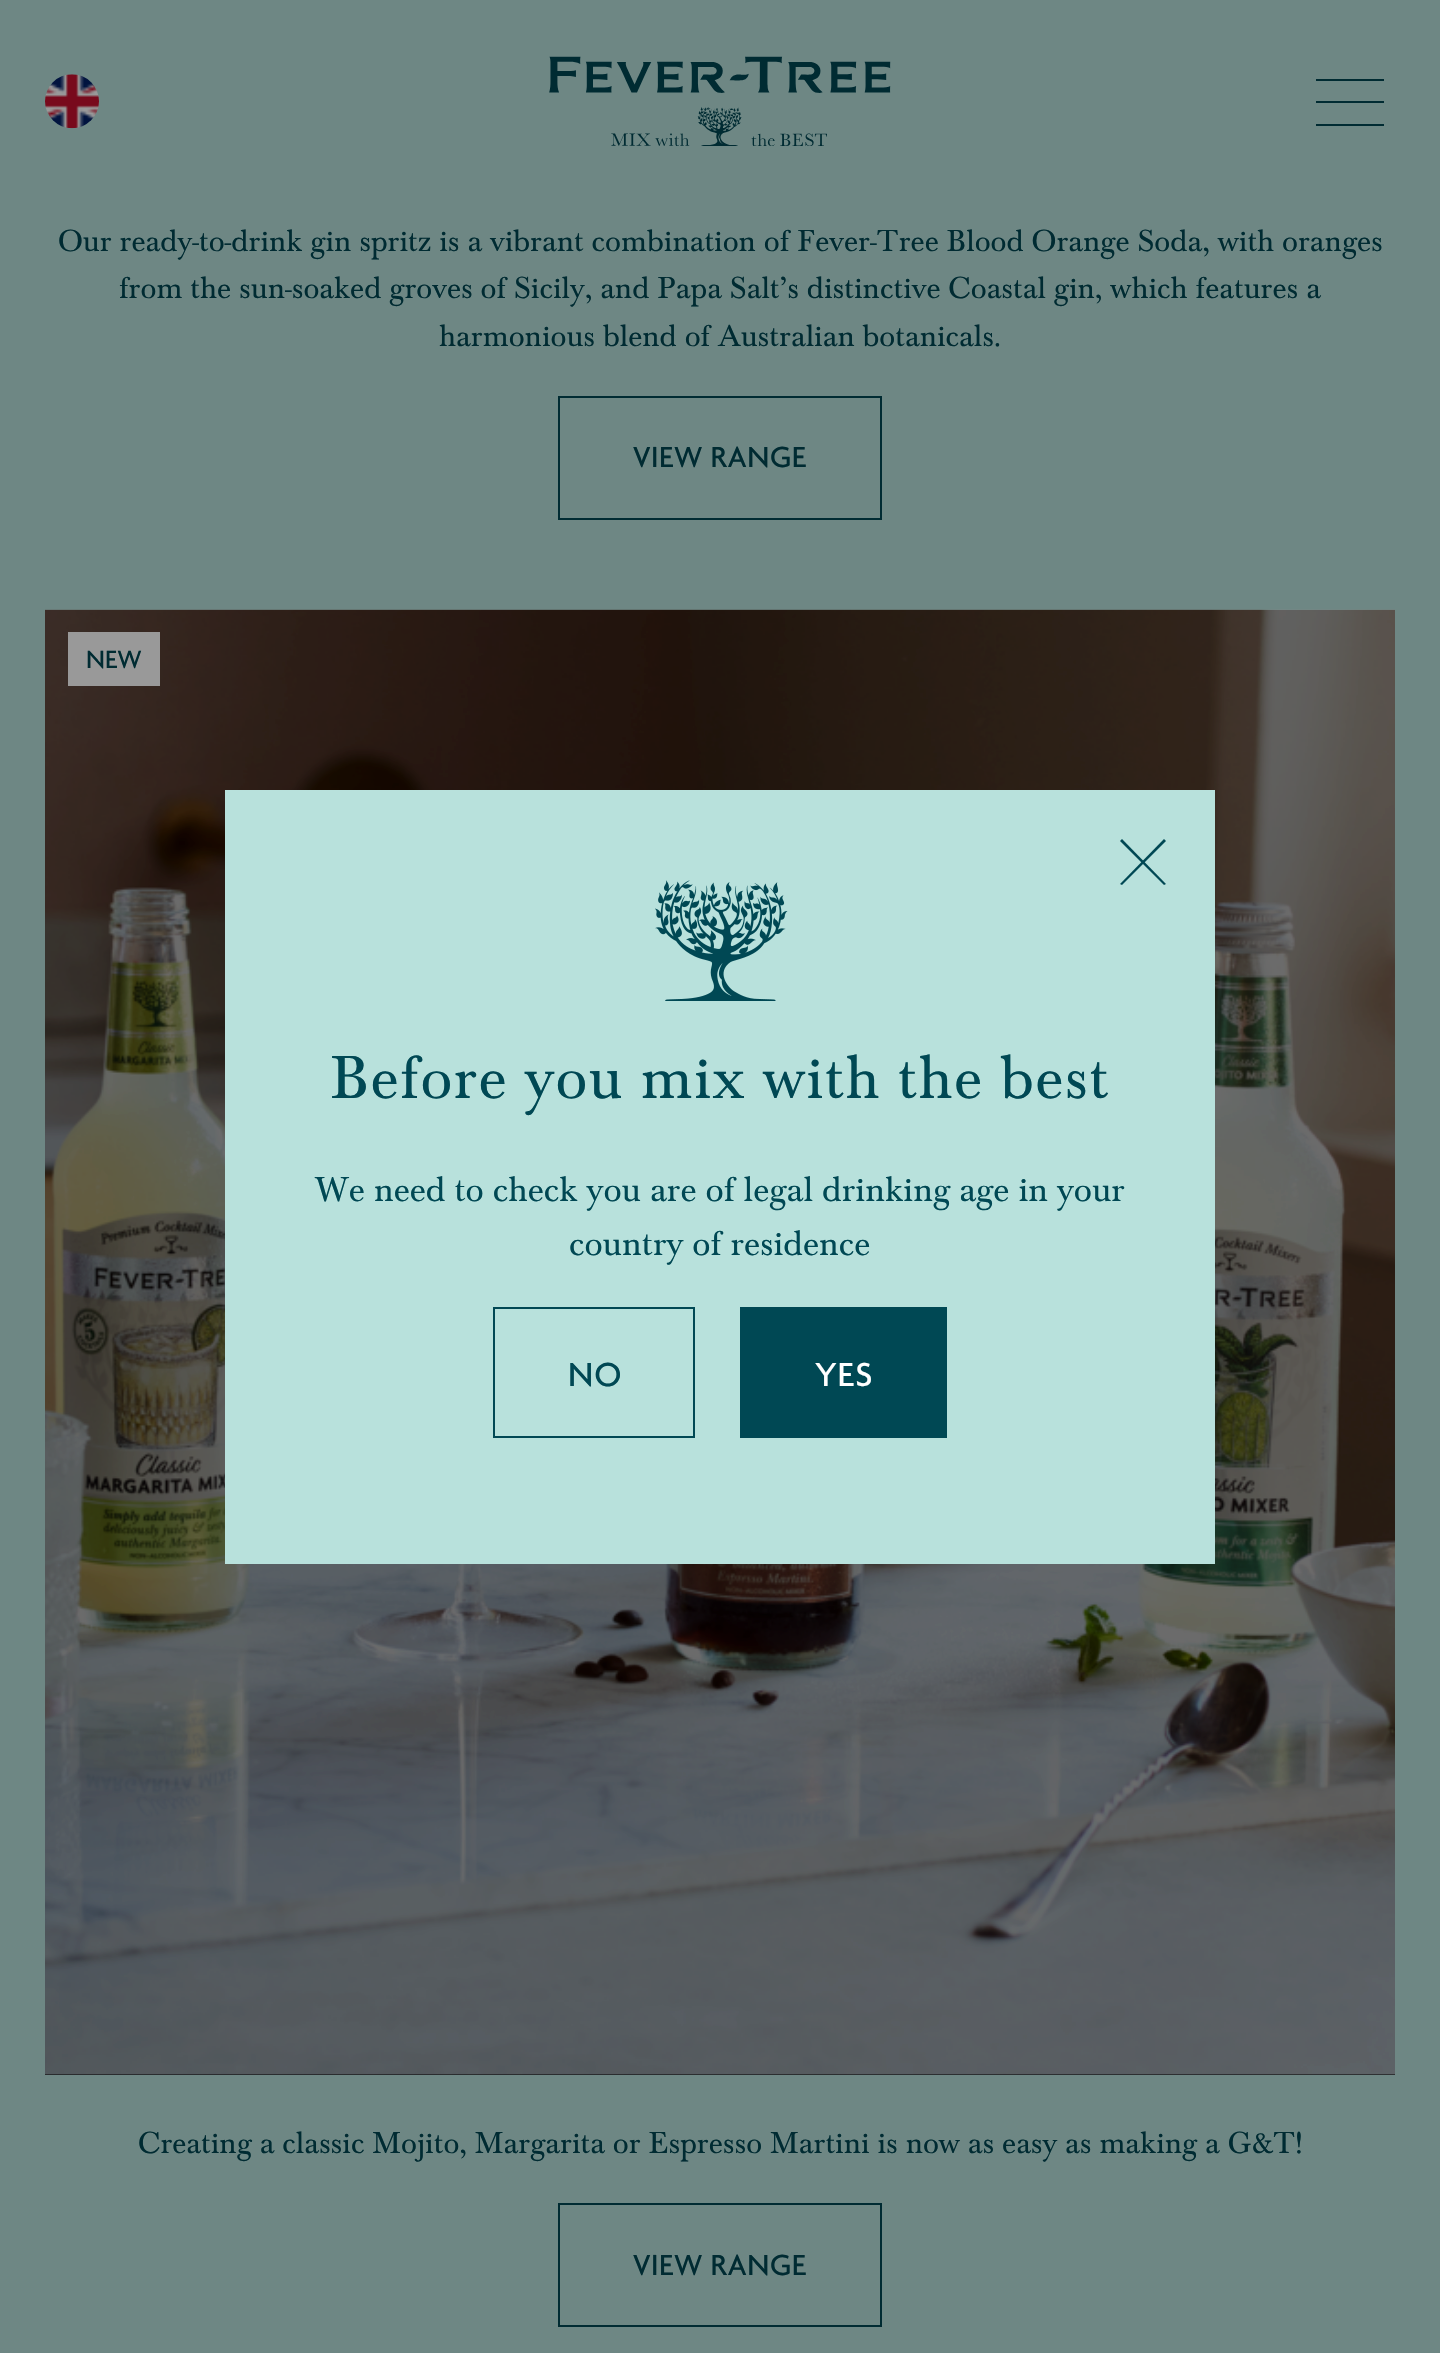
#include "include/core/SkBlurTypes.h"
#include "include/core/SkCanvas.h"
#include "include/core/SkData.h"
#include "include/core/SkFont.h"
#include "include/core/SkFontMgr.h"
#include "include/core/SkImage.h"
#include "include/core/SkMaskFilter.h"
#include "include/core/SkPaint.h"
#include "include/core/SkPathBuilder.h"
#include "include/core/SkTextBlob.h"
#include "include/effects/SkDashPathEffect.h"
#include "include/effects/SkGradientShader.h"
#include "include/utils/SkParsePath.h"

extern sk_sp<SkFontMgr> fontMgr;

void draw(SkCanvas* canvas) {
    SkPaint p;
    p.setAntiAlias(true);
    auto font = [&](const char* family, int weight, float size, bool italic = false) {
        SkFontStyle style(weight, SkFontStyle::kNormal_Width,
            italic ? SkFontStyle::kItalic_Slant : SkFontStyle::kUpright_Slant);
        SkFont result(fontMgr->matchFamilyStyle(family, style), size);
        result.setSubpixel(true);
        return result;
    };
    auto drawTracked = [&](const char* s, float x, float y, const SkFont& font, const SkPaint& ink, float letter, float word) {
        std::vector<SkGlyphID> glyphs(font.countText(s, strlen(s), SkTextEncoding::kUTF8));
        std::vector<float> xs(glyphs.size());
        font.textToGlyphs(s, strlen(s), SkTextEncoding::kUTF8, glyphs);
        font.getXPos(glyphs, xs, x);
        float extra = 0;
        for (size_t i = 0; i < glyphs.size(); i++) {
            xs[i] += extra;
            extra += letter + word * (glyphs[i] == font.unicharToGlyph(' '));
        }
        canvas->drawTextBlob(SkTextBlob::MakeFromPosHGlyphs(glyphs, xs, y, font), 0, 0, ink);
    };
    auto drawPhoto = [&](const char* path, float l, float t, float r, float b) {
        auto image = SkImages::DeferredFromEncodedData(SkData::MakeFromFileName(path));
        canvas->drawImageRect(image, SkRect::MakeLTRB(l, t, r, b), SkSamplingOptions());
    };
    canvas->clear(0xFF6E8784);
    drawPhoto("media/1.png", 45, 74, 99, 129);
    drawPhoto("media/2.png", 549, 56, 891, 146);
    {
        const struct { float l, t, r, b; SkColor color; } items[] = {
            {1316, 79, 1384, 81, 0xFF002B32},
            {1316, 101, 1384, 103, 0xFF002B32},
            {1316, 124, 1384, 126, 0xFF002B32},
        };
        for (auto [l, t, r, b, color] : items) {
            p.setColor(color);
            canvas->drawRect(SkRect::MakeLTRB(l, t, r, b), p);
        }
    }
    auto font1 = font("Baskerville", 400, 31.5f);
    {
        const struct { const char* s; float x, y; } items[] = {
            {"Our ready-to-drink gin spritz is a vibrant combination of Fever-Tree Blood Orange Soda, with oranges", 58, 251},
            {"from the sun-soaked groves of Sicily, and Papa Salt’s distinctive Coastal gin, which features a", 119, 298},
            {"harmonious blend of Australian botanicals.", 439, 346},
        };
        for (auto [s, x, y] : items) {
            canvas->drawString(s, x, y, font1, p);
        }
    }
    p.setStyle(SkPaint::kStroke_Style);
    p.setStrokeWidth(2);
    canvas->drawRect(SkRect::MakeLTRB(559, 397, 881, 519), p);
    auto font2 = font("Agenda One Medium", 500, 31.5f);
    p.setStyle(SkPaint::kFill_Style);
    drawTracked("VIEW RANGE", 633, 467, font2, p, 0.6f, 0);
    p.setColor(0xFF000000);
    canvas->drawRect(SkRect::MakeLTRB(45, 610, 1395, 2075), p);
    drawPhoto("media/3.png", 45, 609, 1395, 2075);
    p.setColor(0xFF999999);
    canvas->drawRect(SkRect::MakeLTRB(68, 632, 160, 686), p);
    auto font3 = font("Agenda One Medium", 500, 27);
    p.setColor(0xFF002B32);
    canvas->drawString("NEW", 86, 668, font3, p);
    canvas->drawString("Creating a classic Mojito, Margarita or Espresso Martini is now as easy as making a G&T!", 138, 2153, font1, p);
    p.setStyle(SkPaint::kStroke_Style);
    canvas->drawRect(SkRect::MakeLTRB(559, 2204, 881, 2326), p);
    p.setStyle(SkPaint::kFill_Style);
    drawTracked("VIEW RANGE", 633, 2275, font2, p, 0.6f, 0);
    p.setColor(0xFFB8E1DC);
    canvas->drawRect(SkRect::MakeLTRB(225, 790, 1215, 1564), p);
    p.setColor(0xFF004854);
    canvas->drawPath(SkPathBuilder().moveTo(1122, 839).lineTo(1166, 884).lineTo(1164, 885).lineTo(1120, 841).close().detach(), p);
    canvas->drawPath(SkPathBuilder().moveTo(1120, 884).lineTo(1164, 839).lineTo(1166, 841).lineTo(1122, 885).close().detach(), p);
    drawPhoto("media/4.png", 655, 880, 788, 1001);
    auto font4 = font("Baskerville", 400, 63);
    drawTracked("Before you mix with the best", 330, 1098, font4, p, 1.25f, 0);
    auto font5 = font("Baskerville", 400, 36);
    canvas->drawString("We need to check you are of legal drinking age in your", 315, 1201, font5, p);
    canvas->drawString("country of residence", 569, 1255, font5, p);
    p.setStyle(SkPaint::kStroke_Style);
    canvas->drawRect(SkRect::MakeLTRB(494, 1308, 694, 1437), p);
    auto font6 = font("Agenda One Medium", 500, 36);
    p.setStyle(SkPaint::kFill_Style);
    drawTracked("NO", 568, 1386, font6, p, 1, 0);
    canvas->drawRect(SkRect::MakeLTRB(740, 1307, 947, 1438), p);
    p.setColor(0xFFFFFFFF);
    drawTracked("YES", 815, 1386, font6, p, 1, 0);
}
